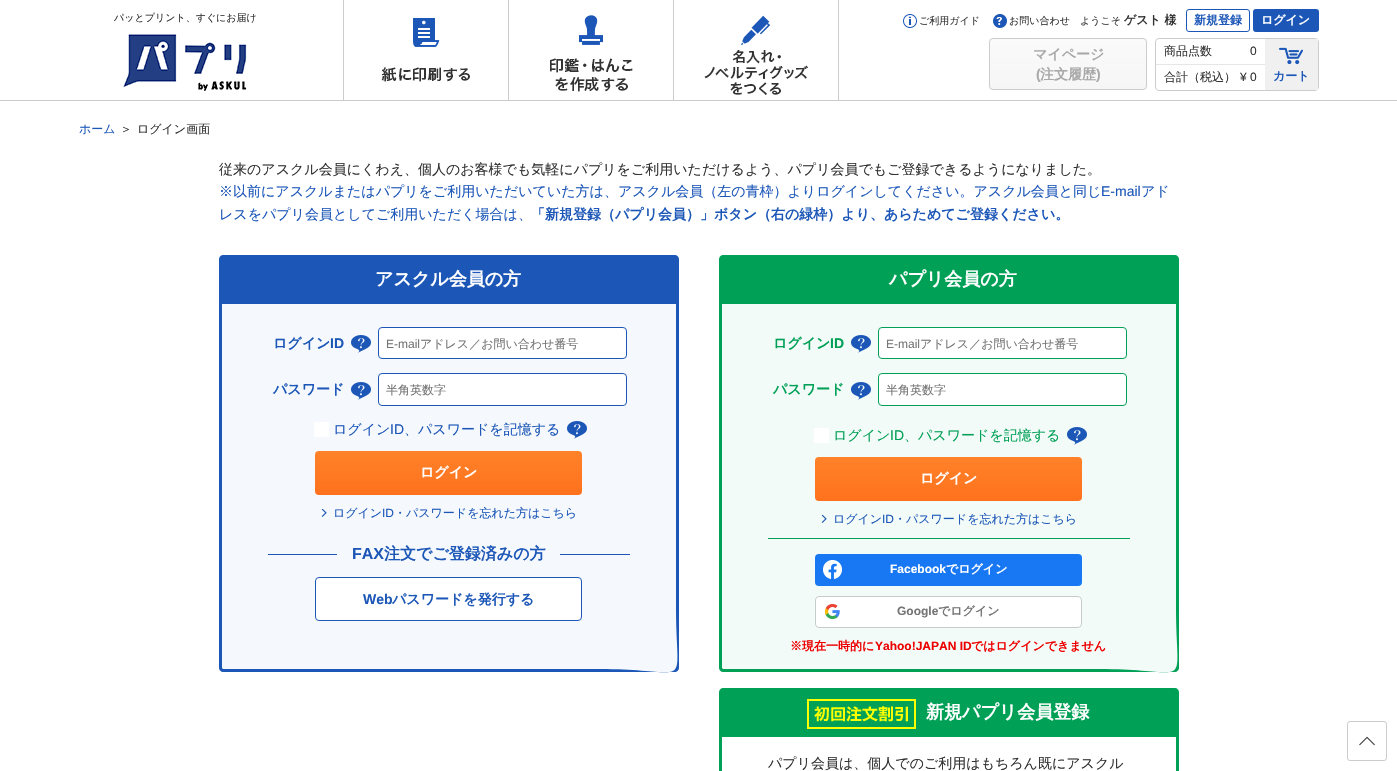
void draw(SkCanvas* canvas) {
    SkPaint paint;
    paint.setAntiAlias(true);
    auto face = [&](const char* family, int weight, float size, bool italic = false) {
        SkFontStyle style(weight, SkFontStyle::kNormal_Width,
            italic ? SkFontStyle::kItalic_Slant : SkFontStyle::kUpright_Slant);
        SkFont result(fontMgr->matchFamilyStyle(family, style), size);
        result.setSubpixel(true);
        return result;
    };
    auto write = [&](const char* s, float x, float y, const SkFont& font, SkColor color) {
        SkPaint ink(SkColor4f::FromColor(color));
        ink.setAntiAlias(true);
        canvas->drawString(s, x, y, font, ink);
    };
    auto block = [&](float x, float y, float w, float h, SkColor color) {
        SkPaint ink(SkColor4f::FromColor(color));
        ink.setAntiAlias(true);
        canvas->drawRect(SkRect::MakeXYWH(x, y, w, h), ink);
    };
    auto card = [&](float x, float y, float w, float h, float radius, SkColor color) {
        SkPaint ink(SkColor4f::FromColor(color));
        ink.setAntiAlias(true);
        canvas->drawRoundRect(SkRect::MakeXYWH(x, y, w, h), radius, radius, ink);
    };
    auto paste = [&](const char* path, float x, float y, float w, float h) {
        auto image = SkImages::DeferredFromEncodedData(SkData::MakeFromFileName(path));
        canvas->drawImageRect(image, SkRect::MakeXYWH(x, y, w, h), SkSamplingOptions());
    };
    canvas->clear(SK_ColorWHITE);
    block(0, 100, 1397, 1, SkColorSetRGB(204, 204, 204));
    auto kFont1 = face("WenQuanYi Zen Hei", 500, 10);
    write("パッとプリント、すぐにお届け", 114, 21, kFont1, SkColorSetRGB(51, 51, 51));
    paste("pic1.png", 123, 34, 124, 57);
    block(508, 0, 1, 100, SkColorSetRGB(204, 204, 204));
    block(343, 0, 1, 100, SkColorSetRGB(204, 204, 204));
    paste("pic2.png", 381, 18, 89, 64);
    block(673, 0, 1, 100, SkColorSetRGB(204, 204, 204));
    paste("pic3.png", 550, 15, 83, 77);
    block(838, 0, 1, 100, SkColorSetRGB(204, 204, 204));
    paste("pic4.png", 704, 15, 104, 80);
    paste("pic5.png", 903, 14, 14, 14);
    write("ご利用ガイド", 919, 24, kFont1, SkColorSetRGB(51, 51, 51));
    paste("pic6.png", 993, 14, 14, 14);
    write("お問い合わせ", 1009, 24, kFont1, SkColorSetRGB(51, 51, 51));
    write("ようこそ", 1080, 24, kFont1, SkColorSetRGB(51, 51, 51));
    auto kFont2 = face("WenQuanYi Zen Hei", 700, 12);
    write("ゲスト 様", 1124, 24, kFont2, SkColorSetRGB(51, 51, 51));
    paint.setStyle(SkPaint::kStroke_Style);
    paint.setStrokeWidth(1);
    paint.setColor(SkColorSetRGB(28, 87, 184));
    canvas->drawRoundRect(SkRect::MakeXYWH(1186.5f, 9.5f, 63, 22), 2.5f, 2.5f, paint);
    write("新規登録", 1194, 24, kFont2, SkColorSetRGB(28, 87, 184));
    card(1253, 9, 66, 23, 3, SkColorSetRGB(28, 87, 184));
    write("ログイン", 1261, 24, kFont2, SK_ColorWHITE);
    canvas->save();
    canvas->clipPath(SkPathBuilder().moveTo(993, 38).lineTo(1143, 38).cubicTo(1145, 38, 1147, 40, 1147, 42).lineTo(1147, 86).cubicTo(1147, 88, 1145, 90, 1143, 90).lineTo(993, 90).cubicTo(991, 90, 989, 88, 989, 86).lineTo(989, 42).cubicTo(989, 40, 991, 38, 993, 38).close().detach(), true);
    paint.setStyle(SkPaint::kFill_Style);
    {
        const SkColor colors[] = {SkColorSetRGB(250, 250, 250), SkColorSetRGB(246, 246, 246)};
        const float stops[] = {0, 1};
        const SkPoint ends[] = {{1068, 39}, {1068, 89}};
        paint.setShader(SkGradientShader::MakeLinear(ends, colors, stops, 2, SkTileMode::kClamp));
        paint.setAlpha(255);
    }
    canvas->drawRect(SkRect::MakeXYWH(989, 39, 158, 50), paint);
    canvas->restore();
    paint.setStyle(SkPaint::kStroke_Style);
    paint.setShader(nullptr);
    paint.setColor(SkColorSetRGB(204, 204, 204));
    canvas->drawRoundRect(SkRect::MakeXYWH(989.5f, 38.5f, 157, 51), 3.5f, 3.5f, paint);
    auto kFont3 = face("WenQuanYi Zen Hei", 700, 14);
    write("マイページ", 1033, 59, kFont3, SkColorSetRGB(168, 168, 168));
    auto kFont4 = face("Liberation Sans", 700, 14);
    write("(", 1036, 79, kFont4, SkColorSetRGB(168, 168, 168));
    write("注文履歴", 1040, 79, kFont3, SkColorSetRGB(168, 168, 168));
    write(")", 1096, 79, kFont4, SkColorSetRGB(168, 168, 168));
    canvas->drawRoundRect(SkRect::MakeXYWH(1155.5f, 38.5f, 163, 52), 3.5f, 3.5f, paint);
    auto kFont5 = face("WenQuanYi Zen Hei", 500, 12);
    write("商品点数", 1164, 55, kFont5, SkColorSetRGB(51, 51, 51));
    block(1156, 64, 109, 1, SkColorSetRGB(230, 230, 230));
    auto kFont6 = face("Liberation Sans", 400, 12);
    write("0", 1250, 55, kFont6, SkColorSetRGB(51, 51, 51));
    write("合計（税込）", 1164, 81, kFont5, SkColorSetRGB(51, 51, 51));
    write("¥ 0", 1240, 81, kFont6, SkColorSetRGB(51, 51, 51));
    block(1265, 39, 53, 51, SkColorSetRGB(240, 240, 240));
    paste("pic7.png", 1279, 47, 24, 18);
    write("カート", 1273, 80, kFont2, SkColorSetRGB(28, 87, 184));
    write("ホーム", 79, 133, kFont5, SkColorSetRGB(28, 87, 184));
    write("＞", 120, 133, kFont5, SkColorSetRGB(51, 51, 51));
    write("ログイン画面", 137, 133, kFont5, SkColorSetRGB(51, 51, 51));
    auto kFont7 = face("WenQuanYi Zen Hei", 500, 14);
    write("従来のアスクル会員にくわえ、個人のお客様でも気軽にパプリをご利用いただけるよう、パプリ会員でもご登録できるようになりました。", 219, 174, kFont7, SkColorSetRGB(51, 51, 51));
    write("※以前にアスクルまたはパプリをご利用いただいていた方は、アスクル会員（左の青枠）よりログインしてください。アスクル会員と同じ", 219, 196, kFont7, SkColorSetRGB(28, 87, 184));
    auto kFont8 = face("Liberation Sans", 400, 14);
    write("E-mail", 1101, 196, kFont8, SkColorSetRGB(28, 87, 184));
    write("アド", 1141, 196, kFont7, SkColorSetRGB(28, 87, 184));
    write("レスをパプリ会員としてご利用いただく場合は、", 219, 219, kFont7, SkColorSetRGB(28, 87, 184));
    write("「新規登録（パプリ会員）」ボタン（右の緑枠）より、あらためてご登録ください。", 531, 219, kFont3, SkColorSetRGB(28, 87, 184));
    paint.setStyle(SkPaint::kFill_Style);
    paint.setColor(SkColorSetRGB(28, 87, 184));
    canvas->drawPath(SkPathBuilder().moveTo(223, 255).lineTo(675, 255).cubicTo(677, 255, 679, 257, 679, 259).lineTo(679, 304).lineTo(219, 304).lineTo(219, 259).cubicTo(219, 257, 221, 255, 223, 255).close().detach(), paint);
    auto kFont9 = face("WenQuanYi Zen Hei", 700, 18);
    write("アスクル会員の方", 375, 285, kFont9, SK_ColorWHITE);
    paint.setColor(SkColorSetRGB(245, 248, 252));
    canvas->drawPath(SkPathBuilder().moveTo(219, 304).lineTo(679, 304).lineTo(679, 668).cubicTo(679, 670, 677, 672, 675, 672).lineTo(223, 672).cubicTo(221, 672, 219, 670, 219, 668).close().detach(), paint);
    paint.setColor(SkColorSetRGB(28, 87, 184));
    canvas->drawPath(SkPathBuilder(SkPathFillType::kEvenOdd).moveTo(219, 304).lineTo(679, 304).lineTo(679, 668).cubicTo(679, 670, 677, 672, 675, 672).lineTo(223, 672).cubicTo(221, 672, 219, 670, 219, 668).close().moveTo(222, 304).lineTo(676, 304).lineTo(676, 607).cubicTo(676, 694, 695, 669, 600, 669).lineTo(223, 669).lineTo(222, 668).close().detach(), paint);
    write("ログイン", 273, 348, kFont3, SkColorSetRGB(28, 87, 184));
    write("ID", 330, 348, kFont4, SkColorSetRGB(28, 87, 184));
    paste("pic8.png", 351, 335, 20, 18);
    paint.setColor(SK_ColorWHITE);
    canvas->drawRoundRect(SkRect::MakeXYWH(378.5f, 327.5f, 248, 31), 3.5f, 3.5f, paint);
    paint.setStyle(SkPaint::kStroke_Style);
    paint.setColor(SkColorSetRGB(28, 87, 184));
    canvas->drawRoundRect(SkRect::MakeXYWH(378.5f, 327.5f, 248, 31), 3.5f, 3.5f, paint);
    write("E-mail", 386, 348, kFont6, SkColorSetRGB(117, 117, 117));
    write("アドレス／お問い合わせ番号", 420, 348, kFont5, SkColorSetRGB(117, 117, 117));
    write("パスワード", 273, 394, kFont3, SkColorSetRGB(28, 87, 184));
    paste("pic8.png", 351, 382, 20, 18);
    paint.setStyle(SkPaint::kFill_Style);
    paint.setColor(SK_ColorWHITE);
    canvas->drawRoundRect(SkRect::MakeXYWH(378.5f, 373.5f, 248, 32), 3.5f, 3.5f, paint);
    paint.setStyle(SkPaint::kStroke_Style);
    paint.setColor(SkColorSetRGB(28, 87, 184));
    canvas->drawRoundRect(SkRect::MakeXYWH(378.5f, 373.5f, 248, 32), 3.5f, 3.5f, paint);
    write("半角英数字", 386, 394, kFont5, SkColorSetRGB(117, 117, 117));
    block(314, 422, 15, 15, SK_ColorWHITE);
    write("ログイン", 333, 434, kFont7, SkColorSetRGB(28, 87, 184));
    write("ID", 390, 434, kFont8, SkColorSetRGB(28, 87, 184));
    write("、パスワードを記憶する", 404, 434, kFont7, SkColorSetRGB(28, 87, 184));
    paste("pic8.png", 567, 421, 20, 18);
    paint.setStyle(SkPaint::kFill_Style);
    {
        const SkColor colors[] = {SkColorSetRGB(255, 130, 41), SkColorSetRGB(255, 113, 29)};
        const float stops[] = {0, 1};
        const SkPoint ends[] = {{449, 451}, {449, 495}};
        paint.setShader(SkGradientShader::MakeLinear(ends, colors, stops, 2, SkTileMode::kClamp));
        paint.setAlpha(255);
    }
    canvas->drawRoundRect(SkRect::MakeXYWH(315, 451, 267, 44), 4, 4, paint);
    write("ログイン", 420, 477, kFont3, SK_ColorWHITE);
    paste("pic9.png", 321, 509, 6, 8);
    write("ログイン", 333, 517, kFont5, SkColorSetRGB(28, 87, 184));
    write("ID", 382, 517, kFont6, SkColorSetRGB(28, 87, 184));
    write("・パスワードを忘れた方はこちら", 394, 517, kFont5, SkColorSetRGB(28, 87, 184));
    block(268, 554, 69, 1, SkColorSetRGB(28, 87, 184));
    auto kFont10 = face("Liberation Sans", 700, 16);
    write("FAX", 352, 559, kFont10, SkColorSetRGB(28, 87, 184));
    auto kFont11 = face("WenQuanYi Zen Hei", 700, 16);
    write("注文でご登録済みの方", 384, 559, kFont11, SkColorSetRGB(28, 87, 184));
    block(560, 554, 70, 1, SkColorSetRGB(28, 87, 184));
    paint.setShader(nullptr);
    paint.setColor(SK_ColorWHITE);
    canvas->drawRoundRect(SkRect::MakeXYWH(315.5f, 577.5f, 266, 43), 3.5f, 3.5f, paint);
    paint.setStyle(SkPaint::kStroke_Style);
    paint.setColor(SkColorSetRGB(28, 87, 184));
    canvas->drawRoundRect(SkRect::MakeXYWH(315.5f, 577.5f, 266, 43), 3.5f, 3.5f, paint);
    write("Web", 363, 604, kFont4, SkColorSetRGB(28, 87, 184));
    write("パスワードを発行する", 392, 604, kFont3, SkColorSetRGB(28, 87, 184));
    paint.setStyle(SkPaint::kFill_Style);
    paint.setColor(SkColorSetRGB(0, 160, 87));
    canvas->drawPath(SkPathBuilder().moveTo(723, 255).lineTo(1175, 255).cubicTo(1177, 255, 1179, 257, 1179, 259).lineTo(1179, 304).lineTo(719, 304).lineTo(719, 259).cubicTo(719, 257, 721, 255, 723, 255).close().detach(), paint);
    write("パプリ会員の方", 889, 285, kFont9, SK_ColorWHITE);
    paint.setColor(SkColorSetRGB(242, 251, 247));
    canvas->drawPath(SkPathBuilder().moveTo(719, 304).lineTo(1179, 304).lineTo(1179, 668).cubicTo(1179, 670, 1177, 672, 1175, 672).lineTo(723, 672).cubicTo(721, 672, 719, 670, 719, 668).close().detach(), paint);
    paint.setColor(SkColorSetRGB(0, 160, 87));
    canvas->drawPath(SkPathBuilder(SkPathFillType::kEvenOdd).moveTo(719, 304).lineTo(1179, 304).lineTo(1179, 668).cubicTo(1179, 670, 1177, 672, 1175, 672).lineTo(723, 672).cubicTo(721, 672, 719, 670, 719, 668).close().moveTo(722, 304).lineTo(1176, 304).lineTo(1176, 607).cubicTo(1176, 694, 1195, 669, 1100, 669).lineTo(723, 669).lineTo(722, 668).close().detach(), paint);
    write("ログイン", 773, 348, kFont3, SkColorSetRGB(0, 160, 87));
    write("ID", 830, 348, kFont4, SkColorSetRGB(0, 160, 87));
    paste("pic10.png", 851, 335, 20, 18);
    paint.setColor(SK_ColorWHITE);
    canvas->drawRoundRect(SkRect::MakeXYWH(878.5f, 327.5f, 248, 31), 3.5f, 3.5f, paint);
    paint.setStyle(SkPaint::kStroke_Style);
    paint.setColor(SkColorSetRGB(0, 160, 87));
    canvas->drawRoundRect(SkRect::MakeXYWH(878.5f, 327.5f, 248, 31), 3.5f, 3.5f, paint);
    write("E-mail", 886, 348, kFont6, SkColorSetRGB(117, 117, 117));
    write("アドレス／お問い合わせ番号", 920, 348, kFont5, SkColorSetRGB(117, 117, 117));
    write("パスワード", 773, 394, kFont3, SkColorSetRGB(0, 160, 87));
    paste("pic10.png", 851, 382, 20, 18);
    paint.setStyle(SkPaint::kFill_Style);
    paint.setColor(SK_ColorWHITE);
    canvas->drawRoundRect(SkRect::MakeXYWH(878.5f, 373.5f, 248, 32), 3.5f, 3.5f, paint);
    paint.setStyle(SkPaint::kStroke_Style);
    paint.setColor(SkColorSetRGB(0, 160, 87));
    canvas->drawRoundRect(SkRect::MakeXYWH(878.5f, 373.5f, 248, 32), 3.5f, 3.5f, paint);
    write("半角英数字", 886, 394, kFont5, SkColorSetRGB(117, 117, 117));
    block(814, 428, 15, 15, SK_ColorWHITE);
    write("ログイン", 833, 440, kFont7, SkColorSetRGB(0, 160, 87));
    write("ID", 890, 440, kFont8, SkColorSetRGB(0, 160, 87));
    write("、パスワードを記憶する", 904, 440, kFont7, SkColorSetRGB(0, 160, 87));
    paste("pic10.png", 1067, 427, 20, 18);
    paint.setStyle(SkPaint::kFill_Style);
    {
        const SkColor colors[] = {SkColorSetRGB(255, 130, 41), SkColorSetRGB(255, 113, 29)};
        const float stops[] = {0, 1};
        const SkPoint ends[] = {{949, 457}, {949, 501}};
        paint.setShader(SkGradientShader::MakeLinear(ends, colors, stops, 2, SkTileMode::kClamp));
        paint.setAlpha(255);
    }
    canvas->drawRoundRect(SkRect::MakeXYWH(815, 457, 267, 44), 4, 4, paint);
    write("ログイン", 920, 483, kFont3, SK_ColorWHITE);
    paste("pic11.png", 821, 515, 6, 8);
    write("ログイン", 833, 523, kFont5, SkColorSetRGB(28, 87, 184));
    write("ID", 882, 523, kFont6, SkColorSetRGB(28, 87, 184));
    write("・パスワードを忘れた方はこちら", 894, 523, kFont5, SkColorSetRGB(28, 87, 184));
    block(768, 538, 362, 1, SkColorSetRGB(0, 160, 87));
    card(815, 554, 267, 32, 4, SkColorSetRGB(24, 119, 242));
    paste("pic12.png", 823, 560, 19, 19);
    auto kFont12 = face("Liberation Sans", 700, 12);
    write("Facebook", 890, 573, kFont12, SK_ColorWHITE);
    write("でログイン", 946, 573, kFont2, SK_ColorWHITE);
    card(815, 596, 267, 32, 4, SK_ColorWHITE);
    paste("pic13.png", 825, 604, 15, 15);
    paint.setStyle(SkPaint::kStroke_Style);
    paint.setShader(nullptr);
    paint.setColor(SkColorSetRGB(199, 203, 201));
    canvas->drawRoundRect(SkRect::MakeXYWH(815.5f, 596.5f, 266, 31), 3.5f, 3.5f, paint);
    write("Google", 897, 615, kFont12, SkColorSetRGB(117, 117, 117));
    write("でログイン", 938, 615, kFont2, SkColorSetRGB(117, 117, 117));
    write("※現在一時的に", 790, 650, kFont2, SkColorSetRGB(237, 0, 0));
    write("Yahoo!JAPAN ID", 875, 650, kFont12, SkColorSetRGB(237, 0, 0));
    write("ではログインできません", 971, 650, kFont2, SkColorSetRGB(237, 0, 0));
    paint.setStyle(SkPaint::kFill_Style);
    paint.setColor(SkColorSetRGB(0, 160, 87));
    canvas->drawPath(SkPathBuilder().moveTo(723, 688).lineTo(1175, 688).cubicTo(1177, 688, 1179, 690, 1179, 692).lineTo(1179, 737).lineTo(719, 737).lineTo(719, 692).cubicTo(719, 690, 721, 688, 723, 688).close().detach(), paint);
    paste("pic14.png", 807, 699, 109, 30);
    write("新規パプリ会員登録", 926, 718, kFont9, SK_ColorWHITE);
    canvas->drawPath(SkPathBuilder(SkPathFillType::kEvenOdd).moveTo(719, 737).lineTo(1179, 737).lineTo(1179, 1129).cubicTo(1179, 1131, 1177, 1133, 1175, 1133).lineTo(723, 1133).cubicTo(721, 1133, 719, 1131, 719, 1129).close().moveTo(722, 737).lineTo(1176, 737).lineTo(1176, 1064).cubicTo(1176, 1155, 1197, 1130, 1100, 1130).lineTo(723, 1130).lineTo(722, 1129).close().detach(), paint);
    write("パプリ会員は、個人でのご利用はもちろん既にアスクル", 768, 768, kFont7, SkColorSetRGB(51, 51, 51));
    paint.setStyle(SkPaint::kStroke_Style);
    paint.setColor(SkColorSetRGB(204, 204, 204));
    canvas->drawRoundRect(SkRect::MakeXYWH(1347.5f, 721.5f, 39, 39), 2.5f, 2.5f, paint);
    paste("pic15.png", 1359, 736, 16, 10);
}
